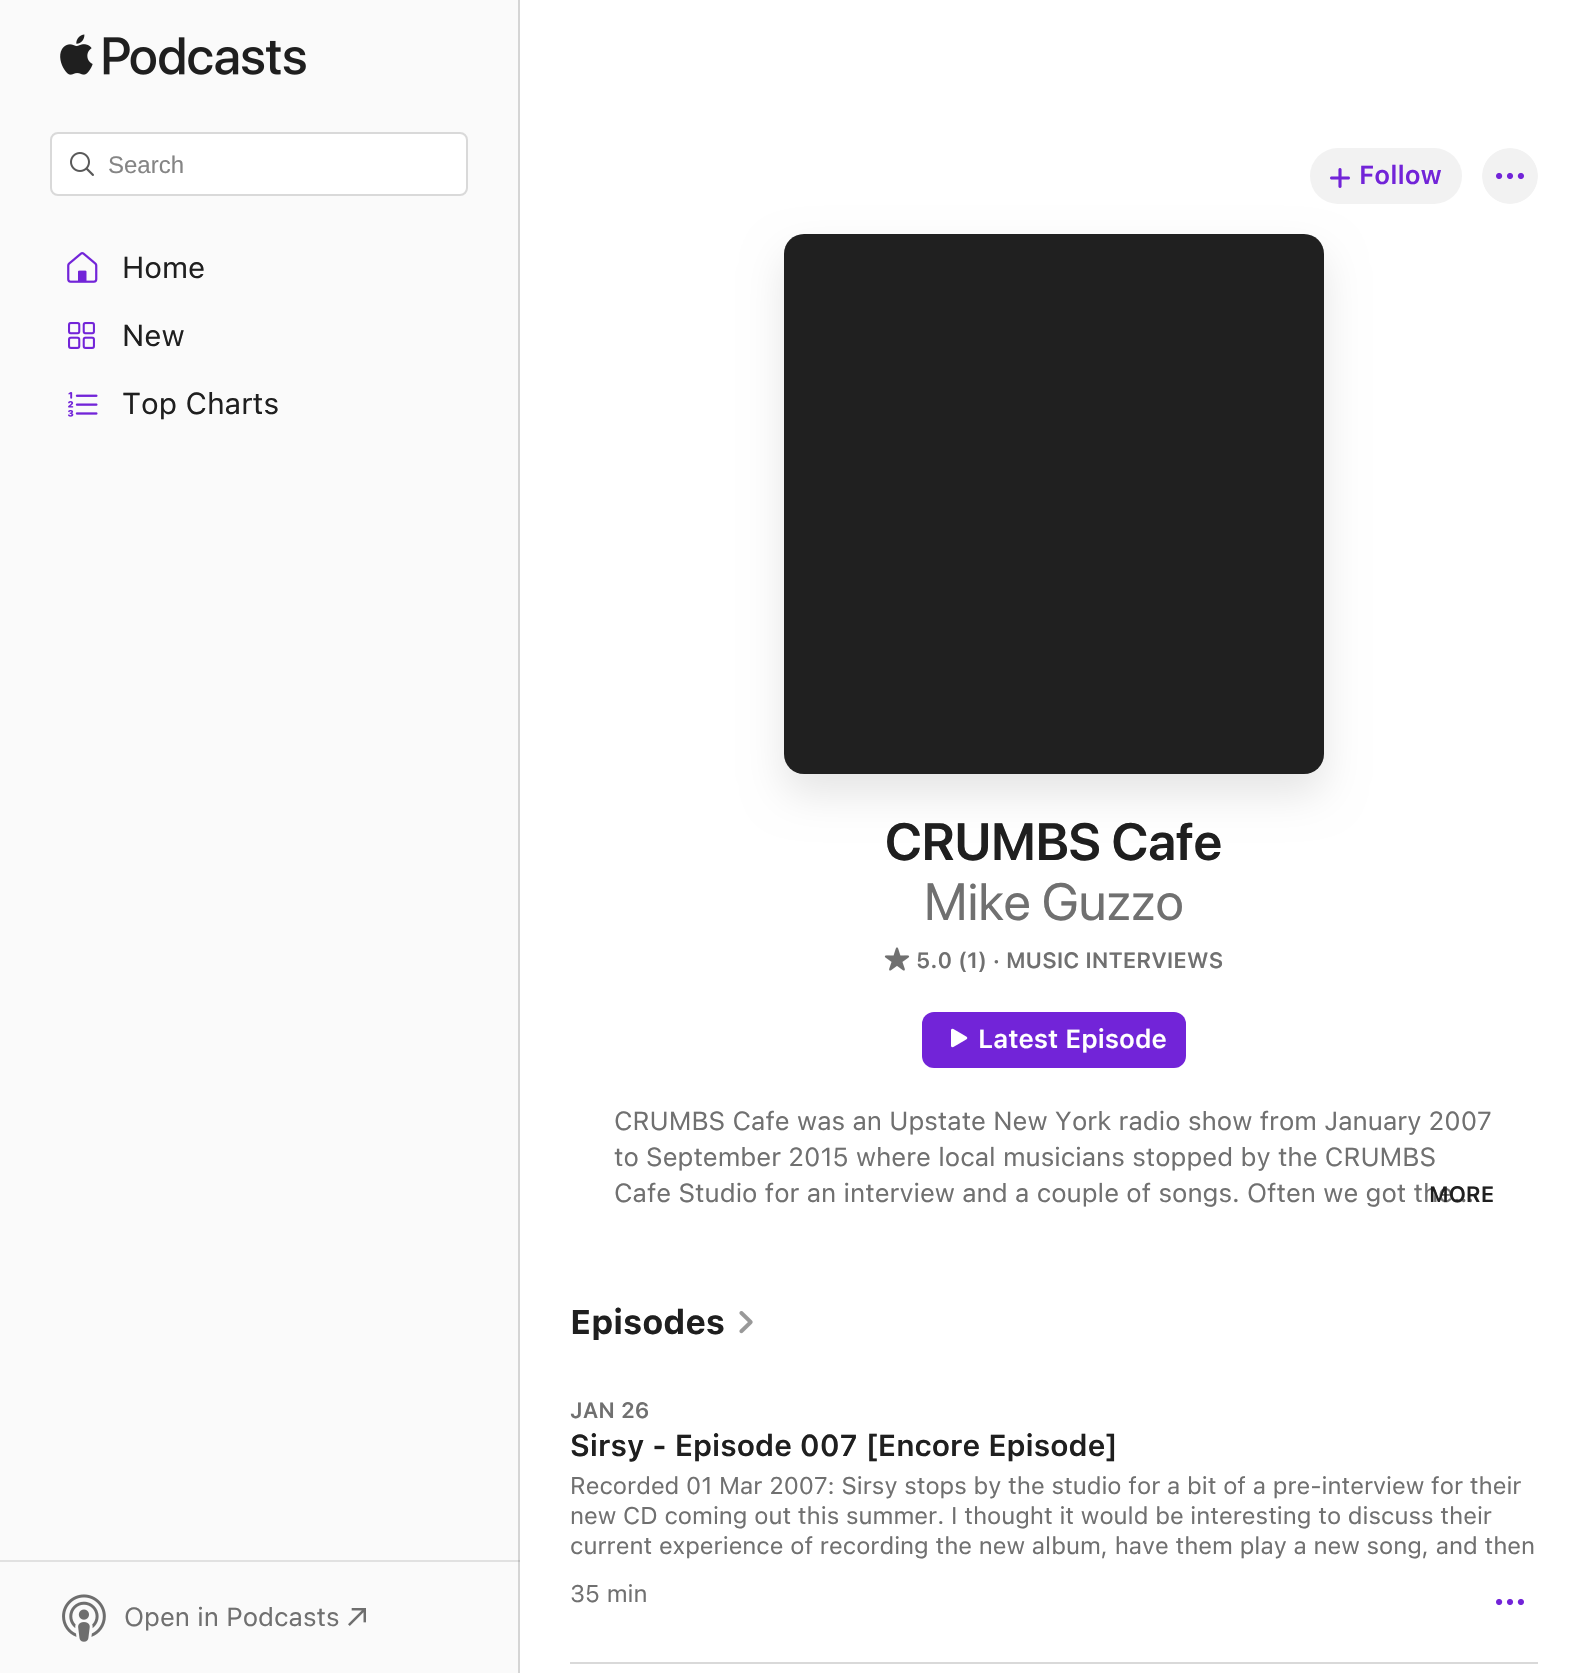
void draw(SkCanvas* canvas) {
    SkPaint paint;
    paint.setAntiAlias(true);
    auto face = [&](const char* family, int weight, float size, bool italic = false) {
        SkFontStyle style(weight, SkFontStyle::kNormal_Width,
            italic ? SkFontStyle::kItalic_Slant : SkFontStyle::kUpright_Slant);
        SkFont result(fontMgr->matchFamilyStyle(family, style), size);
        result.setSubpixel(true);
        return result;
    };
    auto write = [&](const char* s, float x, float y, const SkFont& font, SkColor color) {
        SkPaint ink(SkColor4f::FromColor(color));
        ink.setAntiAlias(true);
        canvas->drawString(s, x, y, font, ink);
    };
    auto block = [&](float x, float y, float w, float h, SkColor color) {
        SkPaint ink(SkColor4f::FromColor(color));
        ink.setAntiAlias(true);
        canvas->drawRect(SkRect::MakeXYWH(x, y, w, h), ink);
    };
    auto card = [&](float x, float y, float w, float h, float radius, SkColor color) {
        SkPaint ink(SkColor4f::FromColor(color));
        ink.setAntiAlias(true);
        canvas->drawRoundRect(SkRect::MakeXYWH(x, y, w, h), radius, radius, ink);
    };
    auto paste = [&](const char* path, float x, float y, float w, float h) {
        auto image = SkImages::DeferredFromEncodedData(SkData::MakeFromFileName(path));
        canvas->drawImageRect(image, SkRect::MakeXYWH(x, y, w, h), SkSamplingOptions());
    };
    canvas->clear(SK_ColorWHITE);
    block(0, 0, 518, 1673, SkColorSetRGB(250, 250, 250));
    block(0, 1560, 520, 2, SkColorSetRGB(225, 225, 225));
    block(518, 0, 2, 1673, SkColorSetRGB(213, 213, 213));
    block(518, 1560, 2, 2, SkColorSetRGB(192, 192, 192));
    paste("pic1.png", 60, 34, 246, 41);
    paint.setColor(SK_ColorWHITE);
    canvas->drawRoundRect(SkRect::MakeXYWH(51, 133, 416, 62), 7, 7, paint);
    paint.setStyle(SkPaint::kStroke_Style);
    paint.setStrokeWidth(2);
    paint.setColor(SkColorSetRGB(217, 217, 217));
    canvas->drawRoundRect(SkRect::MakeXYWH(51, 133, 416, 62), 7, 7, paint);
    paste("pic2.png", 70, 152, 24, 24);
    auto kFont1 = face("Liberation Sans", 400, 24);
    write("Search", 108, 173, kFont1, SkColorSetRGB(133, 133, 133));
    paste("pic3.png", 67, 252, 31, 31);
    auto kFont2 = face("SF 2", 400, 30);
    write("Home", 122, 278, kFont2, SkColorSetRGB(31, 31, 31));
    paste("pic4.png", 68, 322, 27, 27);
    write("New", 122, 346, kFont2, SkColorSetRGB(31, 31, 31));
    paste("pic5.png", 68, 392, 30, 25);
    write("Top Charts", 122, 414, kFont2, SkColorSetRGB(31, 31, 31));
    paste("pic6.png", 62, 1594, 44, 48);
    auto kFont3 = face("SF 2", 400, 26);
    write("Open in Podcasts", 124, 1626, kFont3, SkColorSetRGB(112, 112, 112));
    paste("pic7.png", 348, 1608, 18, 18);
    card(1310, 148, 152, 56, 28, SkColorSetRGB(242, 242, 242));
    paste("pic8.png", 1330, 168, 20, 20);
    auto kFont4 = face("SF", 600, 26);
    write("Follow", 1359, 184, kFont4, SkColorSetRGB(114, 36, 216));
    paste("pic9.png", 1482, 148, 56, 56);
    paint.setStyle(SkPaint::kFill_Style);
    paint.setColor(SkColorSetARGB(26, 0, 0, 0));
    paint.setMaskFilter(SkMaskFilter::MakeBlur(kNormal_SkBlurStyle, 20));
    canvas->drawRoundRect(SkRect::MakeXYWH(784, 254, 540, 540), 20, 20, paint);
    paint.setMaskFilter(nullptr);
    card(784, 234, 540, 540, 20, SkColorSetRGB(21, 21, 21));
    paint.setColor(SkColorSetARGB(26, 128, 128, 128));
    canvas->drawPath(SkPathBuilder().moveTo(804, 234).lineTo(1304, 234).cubicTo(1315, 234, 1324, 243, 1324, 254).lineTo(1324, 754).cubicTo(1324, 765, 1315, 774, 1304, 774).lineTo(804, 774).cubicTo(793, 774, 784, 765, 784, 754).lineTo(784, 254).cubicTo(784, 243, 793, 234, 804, 234).close().detach(), paint);
    auto kFont5 = face("SF 2", 600, 52);
    write("CRUMBS Cafe", 885, 860, kFont5, SkColorSetRGB(31, 31, 31));
    auto kFont6 = face("SF", 400, 52);
    write("Mike Guzzo", 924, 920, kFont6, SkColorSetRGB(112, 112, 112));
    paste("pic10.png", 884, 947, 26, 24);
    auto kFont7 = face("SF", 600, 22);
    write("5.0 (1) · MUSIC INTERVIEWS", 916, 968, kFont7, SkColorSetRGB(112, 112, 112));
    card(922, 1012, 264, 56, 12, SkColorSetRGB(114, 36, 216));
    paste("pic11.png", 951, 1028, 17, 20);
    write("Latest Episode", 978, 1048, kFont4, SK_ColorWHITE);
    write("CRUMBS Cafe was an Upstate New York radio show from January 2007", 614, 1130, kFont3, SkColorSetRGB(112, 112, 112));
    write("to September 2015 where local musicians stopped by the CRUMBS", 614, 1166, kFont3, SkColorSetRGB(112, 112, 112));
    write("Cafe Studio for an interview and a couple of songs. Often we got the…", 614, 1202, kFont3, SkColorSetRGB(112, 112, 112));
    write("MORE", 1429, 1202, kFont7, SkColorSetRGB(31, 31, 31));
    auto kFont8 = face("SF", 700, 34);
    write("Episodes", 570, 1334, kFont8, SkColorSetRGB(31, 31, 31));
    paste("pic12.png", 739, 1311, 14, 23);
    block(570, 1662, 968, 2, SkColorSetRGB(217, 217, 217));
    write("JAN 26", 570, 1418, kFont7, SkColorSetRGB(112, 112, 112));
    auto kFont9 = face("SF", 600, 30);
    write("Sirsy - Episode 007 [Encore Episode]", 570, 1456, kFont9, SkColorSetRGB(31, 31, 31));
    auto kFont10 = face("SF 2", 400, 24);
    write("Recorded 01 Mar 2007: Sirsy stops by the studio for a bit of a pre-interview for their", 570, 1494, kFont10, SkColorSetRGB(112, 112, 112));
    write("new CD coming out this summer. I thought it would be interesting to discuss their", 570, 1524, kFont10, SkColorSetRGB(112, 112, 112));
    write("current experience of recording the new album, have them play a new song, and then", 570, 1554, kFont10, SkColorSetRGB(112, 112, 112));
    write("35 min", 570, 1602, kFont10, SkColorSetRGB(112, 112, 112));
    paste("pic13.png", 1496, 1598, 28, 8);
}
